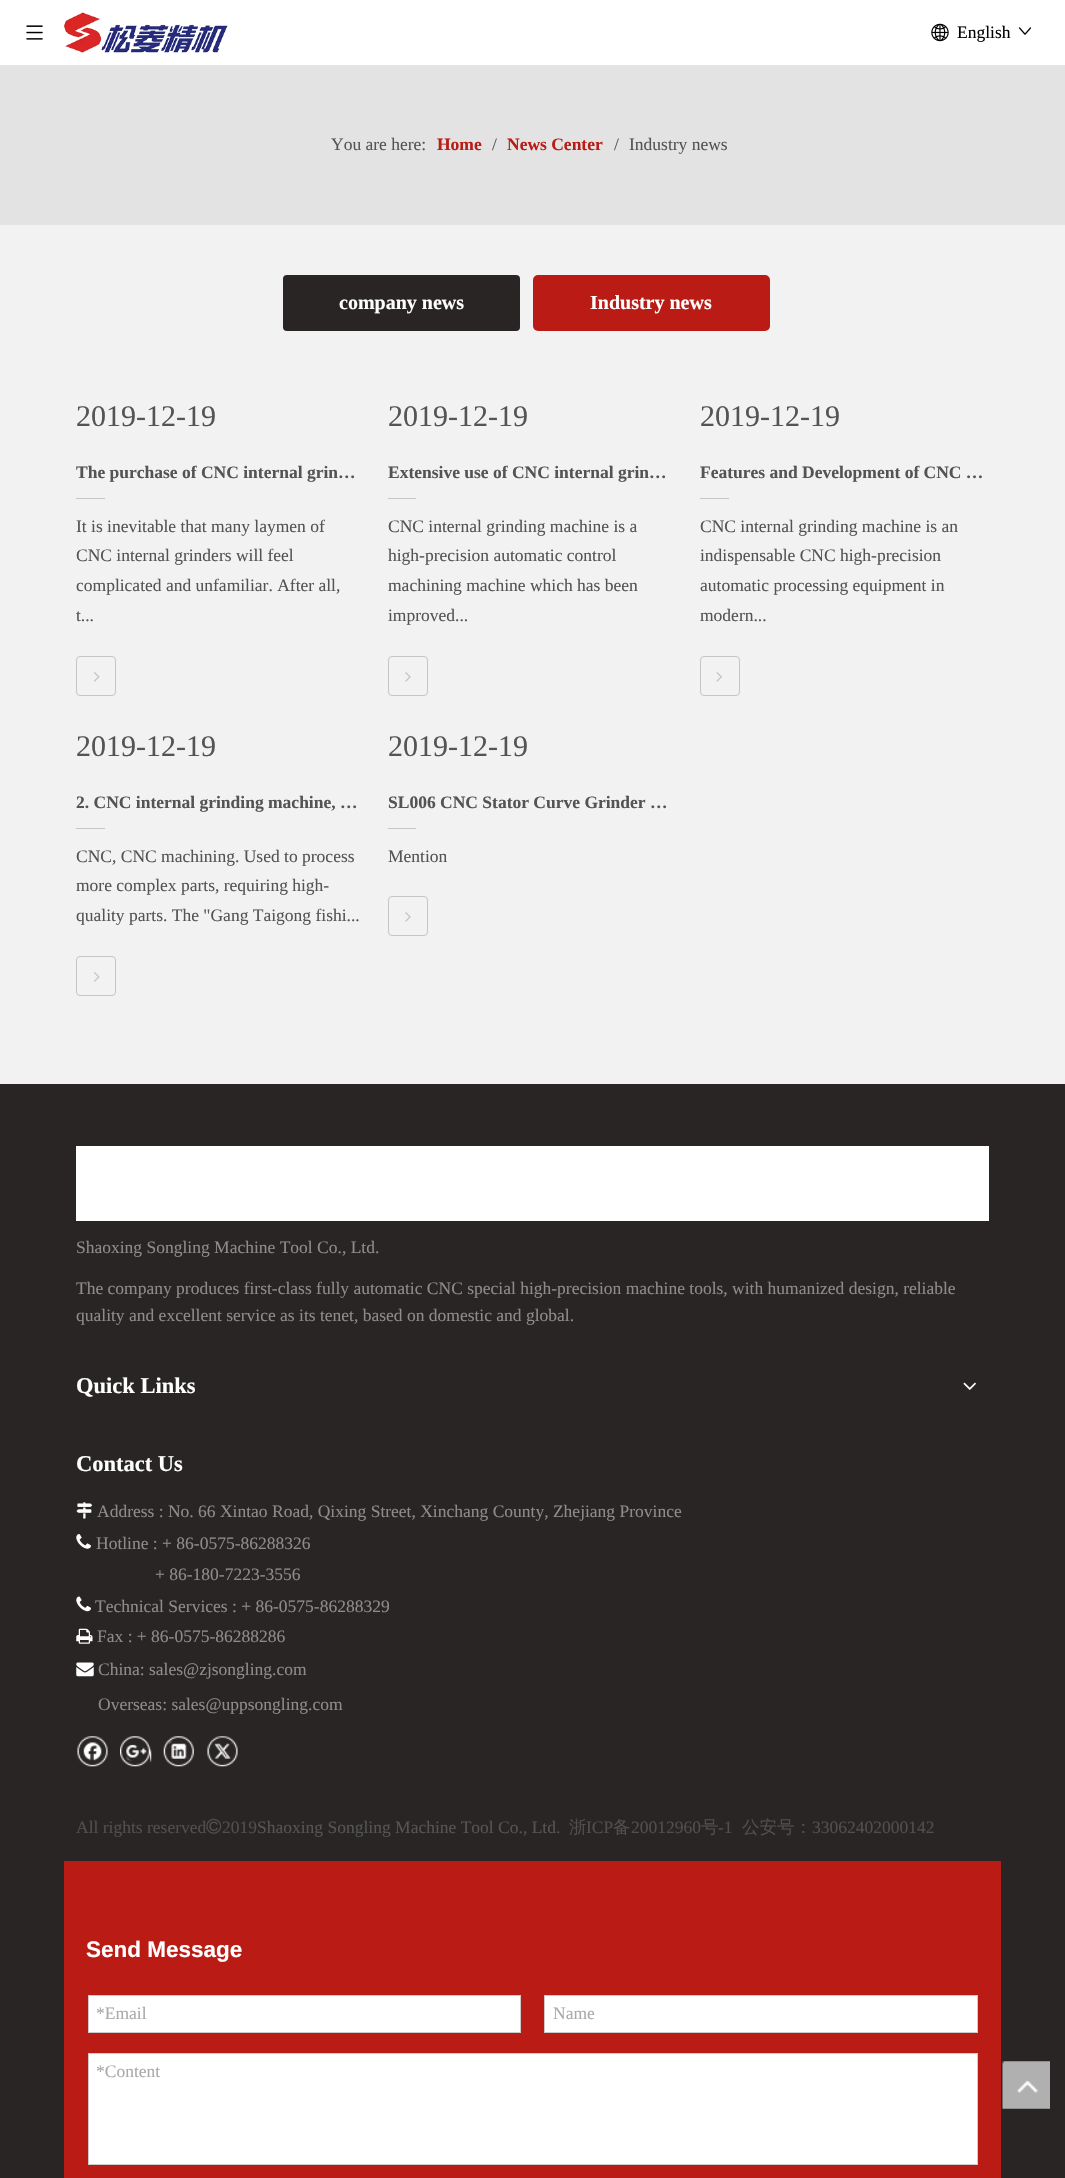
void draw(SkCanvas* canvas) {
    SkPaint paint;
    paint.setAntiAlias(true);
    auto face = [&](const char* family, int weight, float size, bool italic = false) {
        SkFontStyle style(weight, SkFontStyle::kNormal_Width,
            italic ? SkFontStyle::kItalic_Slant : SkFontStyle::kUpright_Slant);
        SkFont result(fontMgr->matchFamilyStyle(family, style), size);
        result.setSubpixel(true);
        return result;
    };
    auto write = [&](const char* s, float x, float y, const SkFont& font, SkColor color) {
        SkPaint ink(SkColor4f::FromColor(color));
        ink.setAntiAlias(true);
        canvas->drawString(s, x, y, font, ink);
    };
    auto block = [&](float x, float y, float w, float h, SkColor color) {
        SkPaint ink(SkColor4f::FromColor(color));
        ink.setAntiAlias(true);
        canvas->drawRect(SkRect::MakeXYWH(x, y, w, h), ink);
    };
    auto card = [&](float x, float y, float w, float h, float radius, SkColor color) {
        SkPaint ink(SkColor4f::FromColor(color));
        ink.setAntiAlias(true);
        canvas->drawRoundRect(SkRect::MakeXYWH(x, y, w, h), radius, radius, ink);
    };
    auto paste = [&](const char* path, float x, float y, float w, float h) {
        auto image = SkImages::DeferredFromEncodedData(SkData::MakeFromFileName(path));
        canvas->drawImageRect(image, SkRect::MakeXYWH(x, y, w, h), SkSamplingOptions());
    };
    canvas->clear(SkColorSetRGB(242, 242, 242));
    block(0, 0, 1065, 65, SK_ColorWHITE);
    paste("pic1.png", 26, 25, 17, 15);
    paste("pic2.png", 64, 12, 164, 41);
    paste("pic3.png", 931, 23, 18, 19);
    auto kFont1 = face("Liberation Serif", 400, 17.5f);
    write("English", 957, 38, kFont1, SK_ColorBLACK);
    paste("pic4.png", 1018, 27, 14, 8);
    block(0, 65, 1065, 160, SkColorSetRGB(227, 227, 227));
    write("You are here:", 331, 150, kFont1, SkColorSetRGB(84, 84, 84));
    auto kFont2 = face("Liberation Serif", 700, 17.5f);
    write("Home", 437, 150, kFont2, SkColorSetRGB(186, 28, 21));
    write("/", 492, 150, kFont1, SkColorSetRGB(84, 84, 84));
    write("News Center", 507, 150, kFont2, SkColorSetRGB(186, 28, 21));
    write("/", 614, 150, kFont1, SkColorSetRGB(84, 84, 84));
    write("Industry news", 629, 150, kFont1, SkColorSetRGB(84, 84, 84));
    card(283, 275, 237, 56, 4, SkColorSetRGB(41, 37, 37));
    auto kFont3 = face("Liberation Serif", 700, 20);
    write("company news", 339, 309, kFont3, SK_ColorWHITE);
    card(533, 275, 237, 56, 5, SkColorSetRGB(186, 28, 21));
    write("Industry news", 590, 309, kFont3, SK_ColorWHITE);
    auto kFont4 = face("Liberation Serif", 400, 30);
    write("2019-12-19", 76, 426, kFont4, SkColorSetRGB(84, 84, 84));
    write("The purchase of CNC internal grin…", 76, 478, kFont2, SkColorSetRGB(84, 84, 84));
    block(76, 498, 29, 1, SkColorSetRGB(197, 197, 197));
    write("It is inevitable that many laymen of", 76, 532, kFont1, SkColorSetRGB(84, 84, 84));
    write("CNC internal grinders will feel", 76, 561, kFont1, SkColorSetRGB(84, 84, 84));
    write("complicated and unfamiliar. After all,", 76, 591, kFont1, SkColorSetRGB(84, 84, 84));
    write("t...", 76, 621, kFont1, SkColorSetRGB(84, 84, 84));
    paint.setStyle(SkPaint::kStroke_Style);
    paint.setStrokeWidth(1);
    paint.setColor(SkColorSetRGB(197, 197, 197));
    canvas->drawRoundRect(SkRect::MakeXYWH(76.5f, 656.5f, 39, 39), 3.5f, 3.5f, paint);
    paste("pic5.png", 94, 672, 6, 10);
    write("2019-12-19", 388, 426, kFont4, SkColorSetRGB(84, 84, 84));
    write("Extensive use of CNC internal grin…", 388, 478, kFont2, SkColorSetRGB(84, 84, 84));
    block(388, 498, 28, 1, SkColorSetRGB(197, 197, 197));
    write("CNC internal grinding machine is a", 388, 532, kFont1, SkColorSetRGB(84, 84, 84));
    write("high-precision automatic control", 388, 561, kFont1, SkColorSetRGB(84, 84, 84));
    write("machining machine which has been", 388, 591, kFont1, SkColorSetRGB(84, 84, 84));
    write("improved...", 388, 621, kFont1, SkColorSetRGB(84, 84, 84));
    canvas->drawRoundRect(SkRect::MakeXYWH(388.5f, 656.5f, 39, 39), 3.5f, 3.5f, paint);
    paste("pic6.png", 405, 672, 6, 10);
    write("2019-12-19", 700, 426, kFont4, SkColorSetRGB(84, 84, 84));
    write("Features and Development of CNC …", 700, 478, kFont2, SkColorSetRGB(84, 84, 84));
    block(700, 498, 29, 1, SkColorSetRGB(197, 197, 197));
    write("CNC internal grinding machine is an", 700, 532, kFont1, SkColorSetRGB(84, 84, 84));
    write("indispensable CNC high-precision", 700, 561, kFont1, SkColorSetRGB(84, 84, 84));
    write("automatic processing equipment in", 700, 591, kFont1, SkColorSetRGB(84, 84, 84));
    write("modern...", 700, 621, kFont1, SkColorSetRGB(84, 84, 84));
    canvas->drawRoundRect(SkRect::MakeXYWH(700.5f, 656.5f, 39, 39), 3.5f, 3.5f, paint);
    paste("pic7.png", 716, 672, 6, 10);
    write("2019-12-19", 76, 756, kFont4, SkColorSetRGB(84, 84, 84));
    write("2. CNC internal grinding machine, …", 76, 808, kFont2, SkColorSetRGB(84, 84, 84));
    block(76, 828, 29, 1, SkColorSetRGB(197, 197, 197));
    write("CNC, CNC machining. Used to process", 76, 862, kFont1, SkColorSetRGB(84, 84, 84));
    write("more complex parts, requiring high-", 76, 891, kFont1, SkColorSetRGB(84, 84, 84));
    write("quality parts. The \"Gang Taigong fishi...", 76, 921, kFont1, SkColorSetRGB(84, 84, 84));
    canvas->drawRoundRect(SkRect::MakeXYWH(76.5f, 956.5f, 39, 39), 3.5f, 3.5f, paint);
    paste("pic5.png", 94, 972, 6, 10);
    write("2019-12-19", 388, 756, kFont4, SkColorSetRGB(84, 84, 84));
    write("SL006 CNC Stator Curve Grinder …", 388, 808, kFont2, SkColorSetRGB(84, 84, 84));
    block(388, 828, 28, 1, SkColorSetRGB(197, 197, 197));
    write("Mention", 388, 862, kFont1, SkColorSetRGB(84, 84, 84));
    canvas->drawRoundRect(SkRect::MakeXYWH(388.5f, 896.5f, 39, 39), 3.5f, 3.5f, paint);
    paste("pic6.png", 405, 912, 6, 10);
    block(0, 1084, 1065, 1094, SkColorSetRGB(41, 37, 37));
    block(76, 1146, 913, 75, SK_ColorWHITE);
    write("Shaoxing Songling Machine Tool Co., Ltd.", 76, 1253, kFont1, SkColorSetRGB(142, 139, 139));
    write("The company produces first-class fully automatic CNC special high-precision machine tools, with humanized design, reliable", 76, 1294, kFont1, SkColorSetRGB(142, 139, 139));
    write("quality and excellent service as its tenet, based on domestic and global.", 76, 1321, kFont1, SkColorSetRGB(142, 139, 139));
    auto kFont5 = face("Liberation Serif", 700, 22.5f);
    write("Quick Links", 76, 1393, kFont5, SK_ColorWHITE);
    paste("pic8.png", 963, 1382, 13, 8);
    write("Contact Us", 76, 1471, kFont5, SK_ColorWHITE);
    paste("pic9.png", 76, 1502, 17, 17);
    write("Address : No. 66 Xintao Road, Qixing Street, Xinchang County, Zhejiang Province", 97, 1517, kFont1, SkColorSetRGB(142, 139, 139));
    paste("pic10.png", 76, 1534, 15, 15);
    write("Hotline : + 86-0575-86288326", 96, 1549, kFont1, SkColorSetRGB(142, 139, 139));
    write("+ 86-180-7223-3556", 155, 1580, kFont1, SkColorSetRGB(142, 139, 139));
    paste("pic11.png", 76, 1596, 15, 16);
    write("Technical Services : + 86-0575-86288329", 95, 1612, kFont1, SkColorSetRGB(142, 139, 139));
    paste("pic12.png", 76, 1628, 17, 16);
    write("Fax : + 86-0575-86288286", 97, 1642, kFont1, SkColorSetRGB(142, 139, 139));
    paste("pic13.png", 76, 1662, 18, 15);
    write("China: sales@zjsongling.com", 98, 1675, kFont1, SkColorSetRGB(142, 139, 139));
    write("Overseas: sales@uppsongling.com", 98, 1710, kFont1, SkColorSetRGB(142, 139, 139));
    paste("pic14.png", 77, 1736, 31, 31);
    paste("pic15.png", 120, 1736, 32, 31);
    paste("pic16.png", 163, 1736, 31, 31);
    paste("pic17.png", 207, 1736, 31, 31);
    write("All rights reserved", 76, 1833, kFont1, SkColorSetRGB(82, 78, 78));
    paste("pic18.png", 206, 1818, 16, 16);
    write("2019", 222, 1833, kFont1, SkColorSetRGB(82, 78, 78));
    write("Shaoxing Songling Machine Tool Co., Ltd.", 257, 1833, kFont1, SkColorSetRGB(84, 84, 84));
    auto kFont6 = face("WenQuanYi Zen Hei", 500, 17.5f);
    write("浙", 569, 1833, kFont6, SkColorSetRGB(82, 78, 78));
    write("ICP", 586, 1833, kFont1, SkColorSetRGB(82, 78, 78));
    write("备", 613, 1833, kFont6, SkColorSetRGB(82, 78, 78));
    write("20012960", 631, 1833, kFont1, SkColorSetRGB(82, 78, 78));
    write("号", 701, 1833, kFont6, SkColorSetRGB(82, 78, 78));
    write("-1", 718, 1833, kFont1, SkColorSetRGB(82, 78, 78));
    write("公安号：", 742, 1833, kFont6, SkColorSetRGB(82, 78, 78));
    write("33062402000142", 812, 1833, kFont1, SkColorSetRGB(82, 78, 78));
    block(64, 1861, 937, 317, SkColorSetRGB(186, 28, 21));
    auto kFont7 = face("Liberation Sans", 700, 22.5f);
    write("Send Message", 86, 1957, kFont7, SK_ColorWHITE);
    paint.setStyle(SkPaint::kFill_Style);
    paint.setColor(SK_ColorWHITE);
    canvas->drawRect(SkRect::MakeXYWH(88.5f, 1995.5f, 432, 37), paint);
    paint.setStyle(SkPaint::kStroke_Style);
    paint.setColor(SkColorSetRGB(204, 204, 204));
    canvas->drawRect(SkRect::MakeXYWH(88.5f, 1995.5f, 432, 37), paint);
    write("*Email", 96, 2019, kFont1, SkColorSetRGB(170, 170, 170));
    paint.setStyle(SkPaint::kFill_Style);
    paint.setColor(SK_ColorWHITE);
    canvas->drawRect(SkRect::MakeXYWH(544.5f, 1995.5f, 433, 37), paint);
    paint.setStyle(SkPaint::kStroke_Style);
    paint.setColor(SkColorSetRGB(204, 204, 204));
    canvas->drawRect(SkRect::MakeXYWH(544.5f, 1995.5f, 433, 37), paint);
    write("Name", 553, 2019, kFont1, SkColorSetRGB(170, 170, 170));
    paint.setStyle(SkPaint::kFill_Style);
    paint.setColor(SK_ColorWHITE);
    canvas->drawRect(SkRect::MakeXYWH(88.5f, 2053.5f, 889, 111), paint);
    paint.setStyle(SkPaint::kStroke_Style);
    paint.setColor(SkColorSetRGB(204, 204, 204));
    canvas->drawRect(SkRect::MakeXYWH(88.5f, 2053.5f, 889, 111), paint);
    write("*Content", 96, 2077, kFont1, SkColorSetRGB(170, 170, 170));
    paste("pic19.png", 1002, 2061, 48, 48);
}
